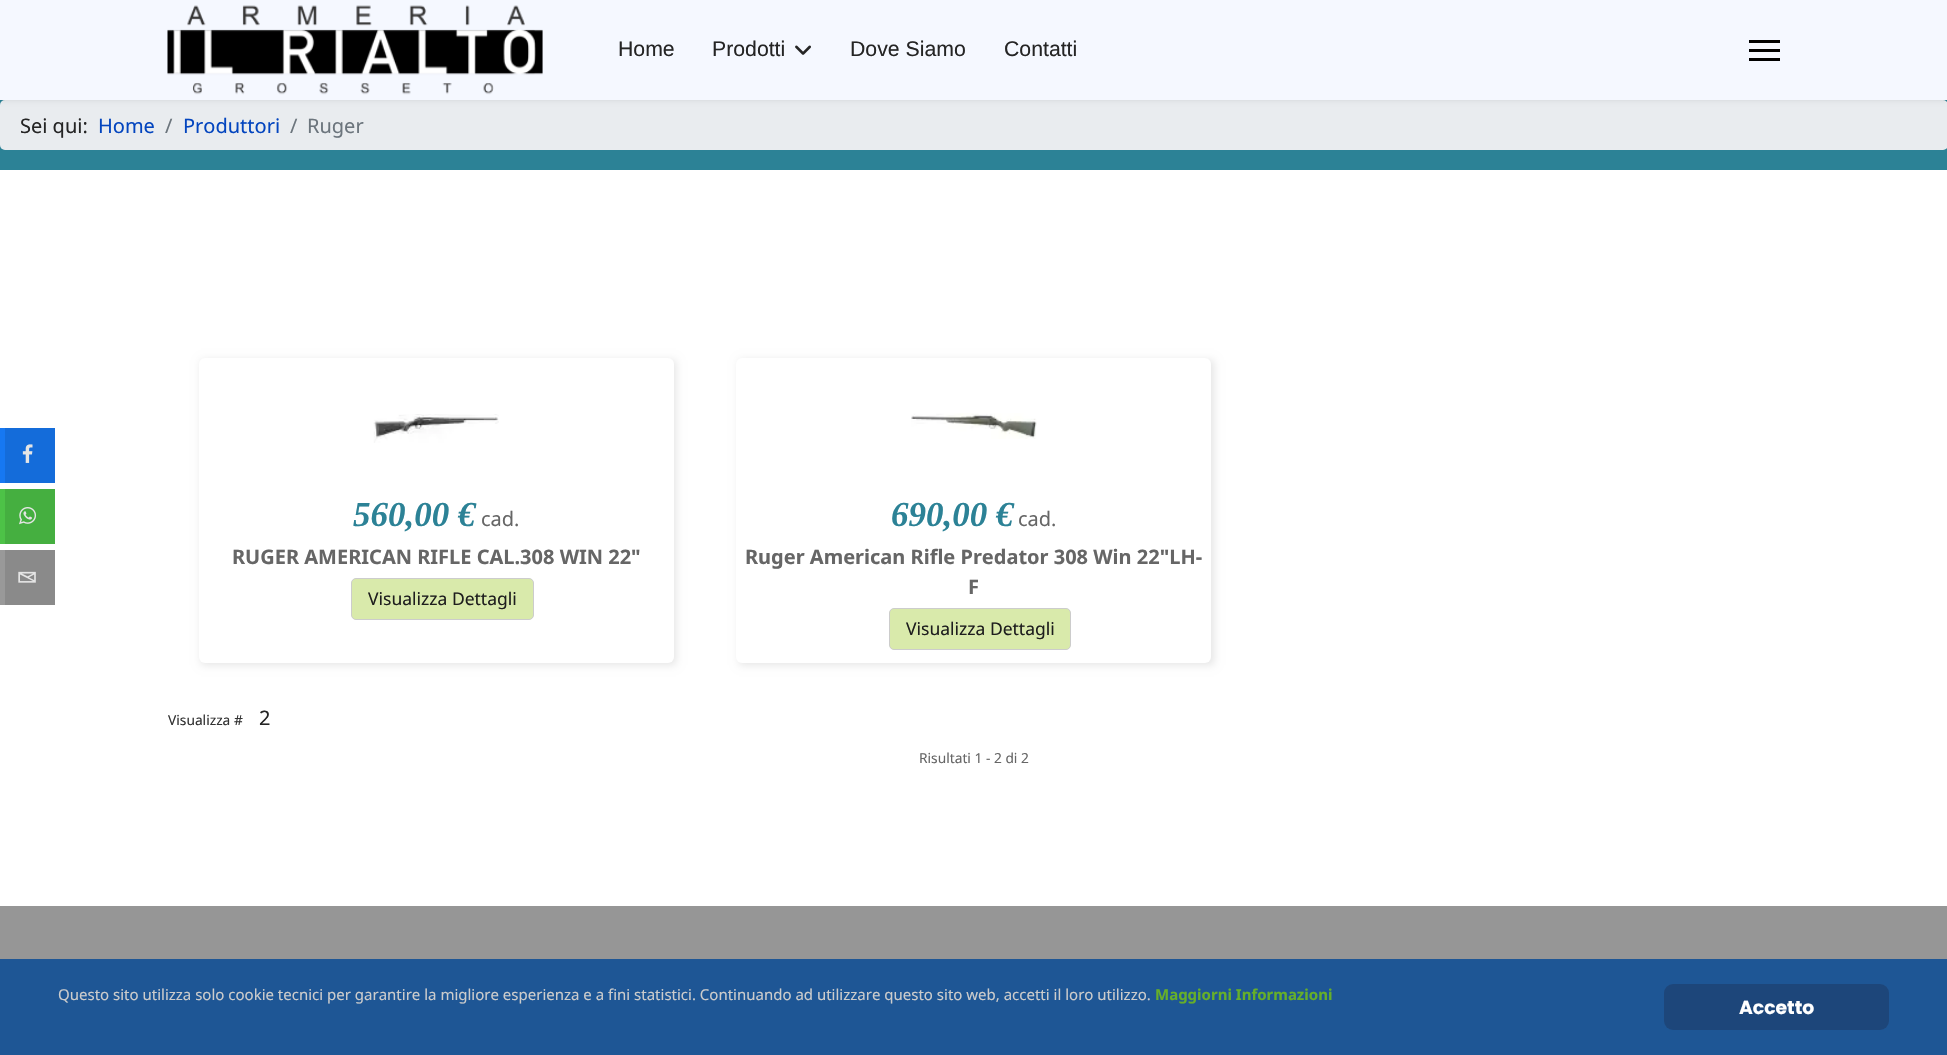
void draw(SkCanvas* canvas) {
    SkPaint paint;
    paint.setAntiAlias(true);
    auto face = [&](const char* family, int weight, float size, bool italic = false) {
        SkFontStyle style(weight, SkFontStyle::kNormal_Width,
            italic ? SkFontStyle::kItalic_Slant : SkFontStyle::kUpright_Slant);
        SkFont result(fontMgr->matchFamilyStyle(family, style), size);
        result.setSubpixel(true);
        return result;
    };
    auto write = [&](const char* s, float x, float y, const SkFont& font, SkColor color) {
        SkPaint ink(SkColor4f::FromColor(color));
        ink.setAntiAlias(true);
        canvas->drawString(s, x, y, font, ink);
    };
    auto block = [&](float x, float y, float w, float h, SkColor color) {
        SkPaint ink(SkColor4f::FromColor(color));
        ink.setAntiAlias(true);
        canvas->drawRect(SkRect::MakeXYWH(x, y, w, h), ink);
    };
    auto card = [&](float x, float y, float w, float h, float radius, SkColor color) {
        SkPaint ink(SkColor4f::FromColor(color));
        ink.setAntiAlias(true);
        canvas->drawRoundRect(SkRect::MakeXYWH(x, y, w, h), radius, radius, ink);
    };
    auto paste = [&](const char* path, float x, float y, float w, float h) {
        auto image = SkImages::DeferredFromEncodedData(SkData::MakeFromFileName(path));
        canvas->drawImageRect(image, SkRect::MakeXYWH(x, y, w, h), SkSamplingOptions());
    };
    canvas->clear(SK_ColorWHITE);
    block(0, 100, 1947, 70, SkColorSetRGB(44, 130, 150));
    card(0, 100, 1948, 50, 5, SkColorSetRGB(233, 236, 239));
    paint.setColor(SkColorSetARGB(26, 0, 0, 0));
    paint.setMaskFilter(SkMaskFilter::MakeBlur(kNormal_SkBlurStyle, 2.5f));
    canvas->drawRect(SkRect::MakeXYWH(0, 0, 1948, 100), paint);
    paint.setMaskFilter(nullptr);
    block(0, 0, 1947, 100, SkColorSetRGB(245, 248, 255));
    paste("pic1.png", 167, 5, 376, 90);
    auto kFont1 = face("Liberation Sans", 400, 21.25f);
    write("Home", 618, 56, kFont1, SkColorSetRGB(37, 37, 37));
    write("Prodotti", 712, 56, kFont1, SkColorSetRGB(37, 37, 37));
    paste("pic2.png", 795, 45, 16, 10);
    write("Dove Siamo", 850, 56, kFont1, SkColorSetRGB(37, 37, 37));
    write("Contatti", 1004, 56, kFont1, SkColorSetRGB(37, 37, 37));
    block(1749, 40, 31, 3, SK_ColorBLACK);
    block(1749, 49, 31, 3, SK_ColorBLACK);
    block(1749, 58, 31, 3, SK_ColorBLACK);
    auto kFont2 = face("Noto Sans", 400, 20);
    write("Sei qui:", 20, 133, kFont2, SkColorSetRGB(37, 37, 37));
    write("Home", 98, 133, kFont2, SkColorSetRGB(3, 69, 191));
    write("/", 165, 133, kFont2, SkColorSetRGB(108, 117, 125));
    write("Produttori", 183, 133, kFont2, SkColorSetRGB(3, 69, 191));
    write("/", 290, 133, kFont2, SkColorSetRGB(108, 117, 125));
    write("Ruger", 307, 133, kFont2, SkColorSetRGB(108, 117, 125));
    paint.setMaskFilter(SkMaskFilter::MakeBlur(kNormal_SkBlurStyle, 4));
    canvas->drawRect(SkRect::MakeXYWH(201, 360, 475, 305), paint);
    paint.setMaskFilter(nullptr);
    card(199, 358, 475, 305, 6, SK_ColorWHITE);
    paste("pic3.png", 373, 414, 126, 29);
    auto kFont3 = face("Liberation Serif", 700, 35, true);
    write("560,00 €", 353, 526, kFont3, SkColorSetRGB(44, 130, 150));
    write("cad.", 481, 526, kFont2, SkColorSetRGB(102, 102, 102));
    auto kFont4 = face("Noto Sans", 700, 20);
    write("RUGER AMERICAN RIFLE CAL.308 WIN 22\"", 232, 564, kFont4, SkColorSetRGB(102, 102, 102));
    paint.setColor(SkColorSetRGB(217, 234, 171));
    canvas->drawRoundRect(SkRect::MakeXYWH(351.5f, 578.5f, 182, 41), 4.5f, 4.5f, paint);
    paint.setStyle(SkPaint::kStroke_Style);
    paint.setStrokeWidth(1);
    paint.setColor(SkColorSetRGB(204, 204, 204));
    canvas->drawRoundRect(SkRect::MakeXYWH(351.5f, 578.5f, 182, 41), 4.5f, 4.5f, paint);
    auto kFont5 = face("Noto Sans", 400, 17.5f);
    write("Visualizza Dettagli", 368, 605, kFont5, SkColorSetRGB(30, 30, 30));
    paint.setStyle(SkPaint::kFill_Style);
    paint.setColor(SkColorSetARGB(26, 0, 0, 0));
    paint.setMaskFilter(SkMaskFilter::MakeBlur(kNormal_SkBlurStyle, 4));
    canvas->drawRect(SkRect::MakeXYWH(739, 360, 475, 305), paint);
    paint.setMaskFilter(nullptr);
    card(736, 358, 475, 305, 6, SK_ColorWHITE);
    paste("pic4.png", 911, 413, 126, 26);
    write("690,00 €", 891, 526, kFont3, SkColorSetRGB(44, 130, 150));
    write("cad.", 1018, 526, kFont2, SkColorSetRGB(102, 102, 102));
    write("Ruger American Rifle Predator 308 Win 22\"LH-", 745, 564, kFont4, SkColorSetRGB(102, 102, 102));
    write("F", 968, 594, kFont4, SkColorSetRGB(102, 102, 102));
    paint.setColor(SkColorSetRGB(217, 234, 171));
    canvas->drawRoundRect(SkRect::MakeXYWH(889.5f, 608.5f, 181, 41), 4.5f, 4.5f, paint);
    paint.setStyle(SkPaint::kStroke_Style);
    paint.setColor(SkColorSetRGB(204, 204, 204));
    canvas->drawRoundRect(SkRect::MakeXYWH(889.5f, 608.5f, 181, 41), 4.5f, 4.5f, paint);
    write("Visualizza Dettagli", 906, 635, kFont5, SkColorSetRGB(30, 30, 30));
    auto kFont6 = face("Noto Sans", 400, 13.75f);
    write("Visualizza #", 168, 725, kFont6, SkColorSetRGB(51, 51, 51));
    write("2", 259, 725, kFont2, SkColorSetRGB(37, 37, 37));
    write("Risultati 1 - 2 di 2", 919, 763, kFont6, SkColorSetRGB(102, 102, 102));
    block(0, 906, 1947, 53, SkColorSetRGB(150, 150, 150));
    block(0, 428, 5, 55, SkColorSetRGB(22, 120, 242));
    block(5, 428, 50, 55, SkColorSetRGB(20, 108, 218));
    paste("pic5.png", 22, 444, 11, 19);
    block(0, 489, 5, 55, SkColorSetRGB(77, 194, 71));
    block(5, 489, 50, 55, SkColorSetRGB(69, 175, 64));
    paste("pic6.png", 19, 507, 18, 18);
    block(0, 550, 5, 55, SkColorSetRGB(153, 153, 153));
    block(5, 550, 50, 55, SkColorSetRGB(138, 138, 138));
    paste("pic7.png", 18, 571, 18, 12);
    block(0, 959, 1947, 96, SkColorSetRGB(30, 86, 149));
    auto kFont7 = face("Noto Sans", 400, 15);
    write("Questo sito utilizza solo cookie tecnici per garantire la migliore esperienza e a fini statistici. Continuando ad utilizzare questo sito web, accetti il loro utilizzo.", 58, 1000, kFont7, SkColorSetRGB(204, 204, 204));
    auto kFont8 = face("Noto Sans", 700, 15);
    write("Maggiorni Informazioni", 1155, 1000, kFont8, SkColorSetRGB(102, 175, 41));
    card(1664, 984, 225, 46, 9, SkColorSetRGB(29, 70, 122));
    auto kFont9 = face("Poppins", 700, 18.75f);
    write("Accetto", 1739, 1014, kFont9, SK_ColorWHITE);
}
